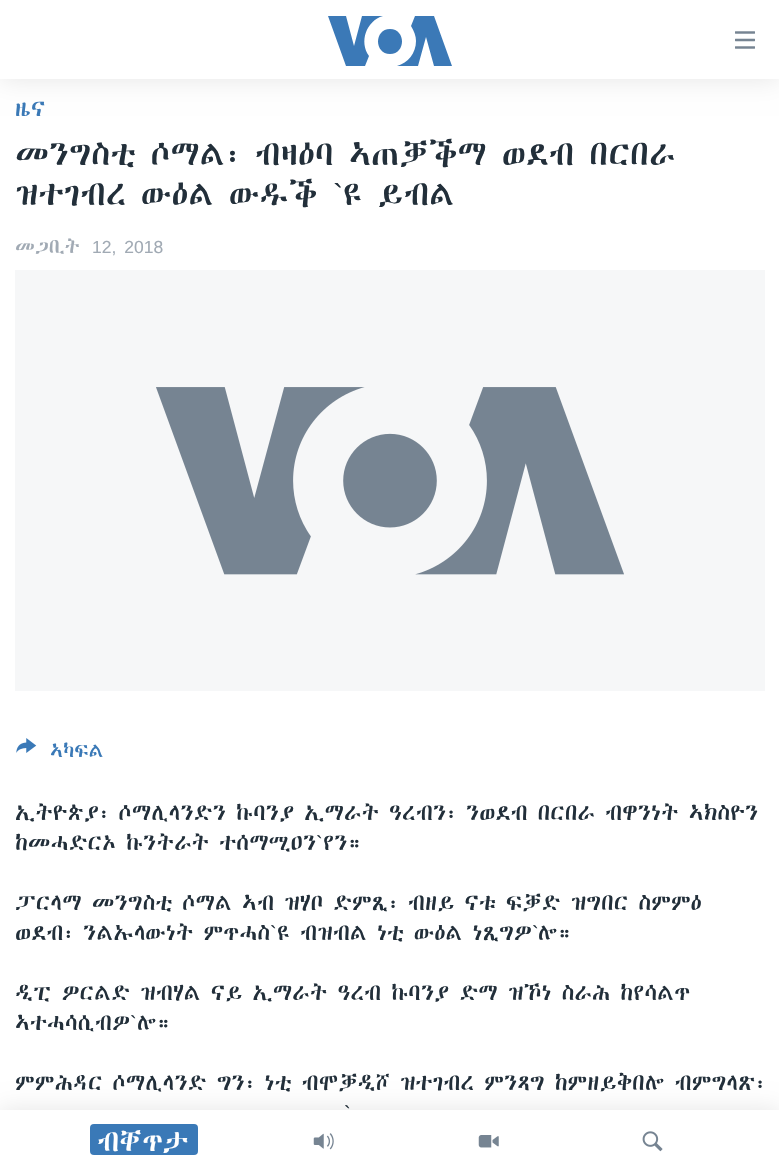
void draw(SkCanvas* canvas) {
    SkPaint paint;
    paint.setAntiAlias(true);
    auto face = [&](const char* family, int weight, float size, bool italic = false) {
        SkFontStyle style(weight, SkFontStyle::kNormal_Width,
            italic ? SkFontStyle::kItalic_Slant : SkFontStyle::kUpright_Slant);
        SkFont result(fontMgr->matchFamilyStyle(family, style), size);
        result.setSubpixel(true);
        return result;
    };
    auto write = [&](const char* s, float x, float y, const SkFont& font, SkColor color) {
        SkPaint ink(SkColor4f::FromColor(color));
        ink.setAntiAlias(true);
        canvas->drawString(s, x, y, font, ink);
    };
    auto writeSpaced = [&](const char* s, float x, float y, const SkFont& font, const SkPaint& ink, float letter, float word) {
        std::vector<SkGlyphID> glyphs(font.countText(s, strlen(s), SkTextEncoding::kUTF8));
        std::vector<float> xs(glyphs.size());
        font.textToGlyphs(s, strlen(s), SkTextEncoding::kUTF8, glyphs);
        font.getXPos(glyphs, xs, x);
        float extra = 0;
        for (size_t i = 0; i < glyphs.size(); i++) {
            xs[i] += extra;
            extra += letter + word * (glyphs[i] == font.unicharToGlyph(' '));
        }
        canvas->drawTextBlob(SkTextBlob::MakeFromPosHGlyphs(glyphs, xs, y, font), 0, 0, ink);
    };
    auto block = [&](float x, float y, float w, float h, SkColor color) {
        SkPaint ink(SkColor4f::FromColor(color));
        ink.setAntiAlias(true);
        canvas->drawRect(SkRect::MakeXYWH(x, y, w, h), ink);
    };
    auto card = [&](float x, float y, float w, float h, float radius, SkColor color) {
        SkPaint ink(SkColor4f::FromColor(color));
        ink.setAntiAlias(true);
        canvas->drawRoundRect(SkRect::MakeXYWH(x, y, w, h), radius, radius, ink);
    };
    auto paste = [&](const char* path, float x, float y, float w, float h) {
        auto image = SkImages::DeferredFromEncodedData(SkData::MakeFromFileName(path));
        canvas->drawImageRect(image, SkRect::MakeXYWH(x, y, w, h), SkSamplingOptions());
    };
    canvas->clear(SK_ColorWHITE);
    auto kFont1 = face("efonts", 400, 20);
    write("ዜና", 15, 116, kFont1, SkColorSetRGB(58, 121, 183));
    auto kFont2 = face("efonts", 400, 30);
    write("መንግስቲ ሶማል፡ ብዛዕባ ኣጠቓቕማ ወደብ በርበራ", 15, 165, kFont2, SkColorSetRGB(34, 47, 58));
    write("ዝተገብረ ውዕል ውዱቕ", 15, 205, kFont2, SkColorSetRGB(34, 47, 58));
    auto kFont3 = face("Liberation Sans", 400, 30);
    write("`", 333, 205, kFont3, SkColorSetRGB(34, 47, 58));
    write("ዩ ይብል", 343, 205, kFont2, SkColorSetRGB(34, 47, 58));
    auto kFont4 = face("efonts", 400, 17.5f);
    write("መጋቢት", 15, 253, kFont4, SkColorSetRGB(161, 170, 180));
    auto kFont5 = face("Liberation Sans", 400, 17.5f);
    paint.setColor(SkColorSetRGB(161, 170, 180));
    writeSpaced("12, 2018", 92, 253, kFont5, paint, 0, 3);
    block(15, 270, 750, 421, SkColorSetRGB(246, 247, 248));
    paste("pic1.png", 156, 387, 468, 188);
    paste("pic2.png", 16, 738, 21, 15);
    write("ኣካፍል", 50, 757, kFont4, SkColorSetRGB(58, 121, 183));
    write("ኢትዮጵያ፡ ሶማሊላንድን ኩባንያ ኢማራት ዓረብን፡ ንወደብ በርበራ ብዋንነት ኣክስዮን", 15, 820, kFont1, SkColorSetRGB(34, 47, 58));
    write("ከመሓድርኦ ኩንትራት ተሰማሚዐን", 15, 850, kFont1, SkColorSetRGB(34, 47, 58));
    auto kFont6 = face("Liberation Sans", 400, 20);
    write("`", 316, 850, kFont6, SkColorSetRGB(34, 47, 58));
    write("የን።", 323, 850, kFont1, SkColorSetRGB(34, 47, 58));
    write("ፓርላማ መንግስቲ ሶማል ኣብ ዝሃቦ ድምጺ፡ ብዘይ ናቱ ፍቓድ ዝግበር ስምምዕ", 15, 910, kFont1, SkColorSetRGB(34, 47, 58));
    write("ወደብ፡ ንልኡላውነት ምጥሓስ", 15, 940, kFont1, SkColorSetRGB(34, 47, 58));
    write("`", 270, 940, kFont6, SkColorSetRGB(34, 47, 58));
    write("ዩ ብዝብል ነቲ ውዕል ነጺግዎ", 277, 940, kFont1, SkColorSetRGB(34, 47, 58));
    write("`", 532, 940, kFont6, SkColorSetRGB(34, 47, 58));
    write("ሎ።", 538, 940, kFont1, SkColorSetRGB(34, 47, 58));
    write("ዲፒ ዎርልድ ዝብሃል ናይ ኢማራት ዓረብ ኩባንያ ድማ ዝኾነ ስራሕ ከየሳልጥ", 15, 1000, kFont1, SkColorSetRGB(34, 47, 58));
    write("ኣተሓሳሲብዎ", 15, 1030, kFont1, SkColorSetRGB(34, 47, 58));
    write("`", 130, 1030, kFont6, SkColorSetRGB(34, 47, 58));
    write("ሎ።", 137, 1030, kFont1, SkColorSetRGB(34, 47, 58));
    write("ምምሕዳር ሶማሊላንድ ግን፡ ነቲ ብሞቓዲሾ ዝተገብረ ምንጻግ ከምዘይቅበሎ ብምግላጽ፡", 15, 1090, kFont1, SkColorSetRGB(34, 47, 58));
    write("`", 344, 1120, kFont6, SkColorSetRGB(34, 47, 58));
    paint.setColor(SkColorSetARGB(26, 0, 0, 0));
    paint.setMaskFilter(SkMaskFilter::MakeBlur(kNormal_SkBlurStyle, 12.5f));
    canvas->drawRect(SkRect::MakeXYWH(0, 0, 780, 79), paint);
    paint.setMaskFilter(nullptr);
    block(0, 0, 779, 79, SK_ColorWHITE);
    paint.setColor(SkColorSetRGB(59, 121, 183));
    canvas->drawPath(SkPathBuilder().moveTo(369, 56).lineTo(365, 66).lineTo(346, 66).lineTo(328, 16).lineTo(346, 16).lineTo(354, 46).lineTo(362, 16).lineTo(383, 16).cubicTo(366, 21, 359, 42, 369, 56).close().moveTo(390, 29).cubicTo(374, 29, 374, 54, 390, 54).cubicTo(406, 54, 406, 29, 390, 29).close().moveTo(416, 41).cubicTo(416, 53, 408, 63, 397, 66).lineTo(418, 66).lineTo(426, 37).lineTo(434, 66).lineTo(452, 66).lineTo(434, 16).lineTo(415, 16).lineTo(411, 26).cubicTo(414, 31, 416, 36, 416, 41).close().detach(), paint);
    paste("pic3.png", 735, 31, 20, 18);
    paint.setColor(SkColorSetARGB(26, 0, 0, 0));
    paint.setMaskFilter(SkMaskFilter::MakeBlur(kNormal_SkBlurStyle, 12.5f));
    canvas->drawRect(SkRect::MakeXYWH(0, 1110, 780, 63), paint);
    paint.setMaskFilter(nullptr);
    block(0, 1110, 779, 62, SK_ColorWHITE);
    card(90, 1124, 108, 31, 4, SkColorSetRGB(58, 121, 183));
    auto kFont7 = face("efonts", 400, 26);
    write("ብቐጥታ", 97, 1151, kFont7, SK_ColorWHITE);
    paste("pic4.png", 313, 1133, 21, 17);
    paste("pic5.png", 478, 1135, 21, 13);
    paste("pic6.png", 642, 1131, 21, 21);
}
